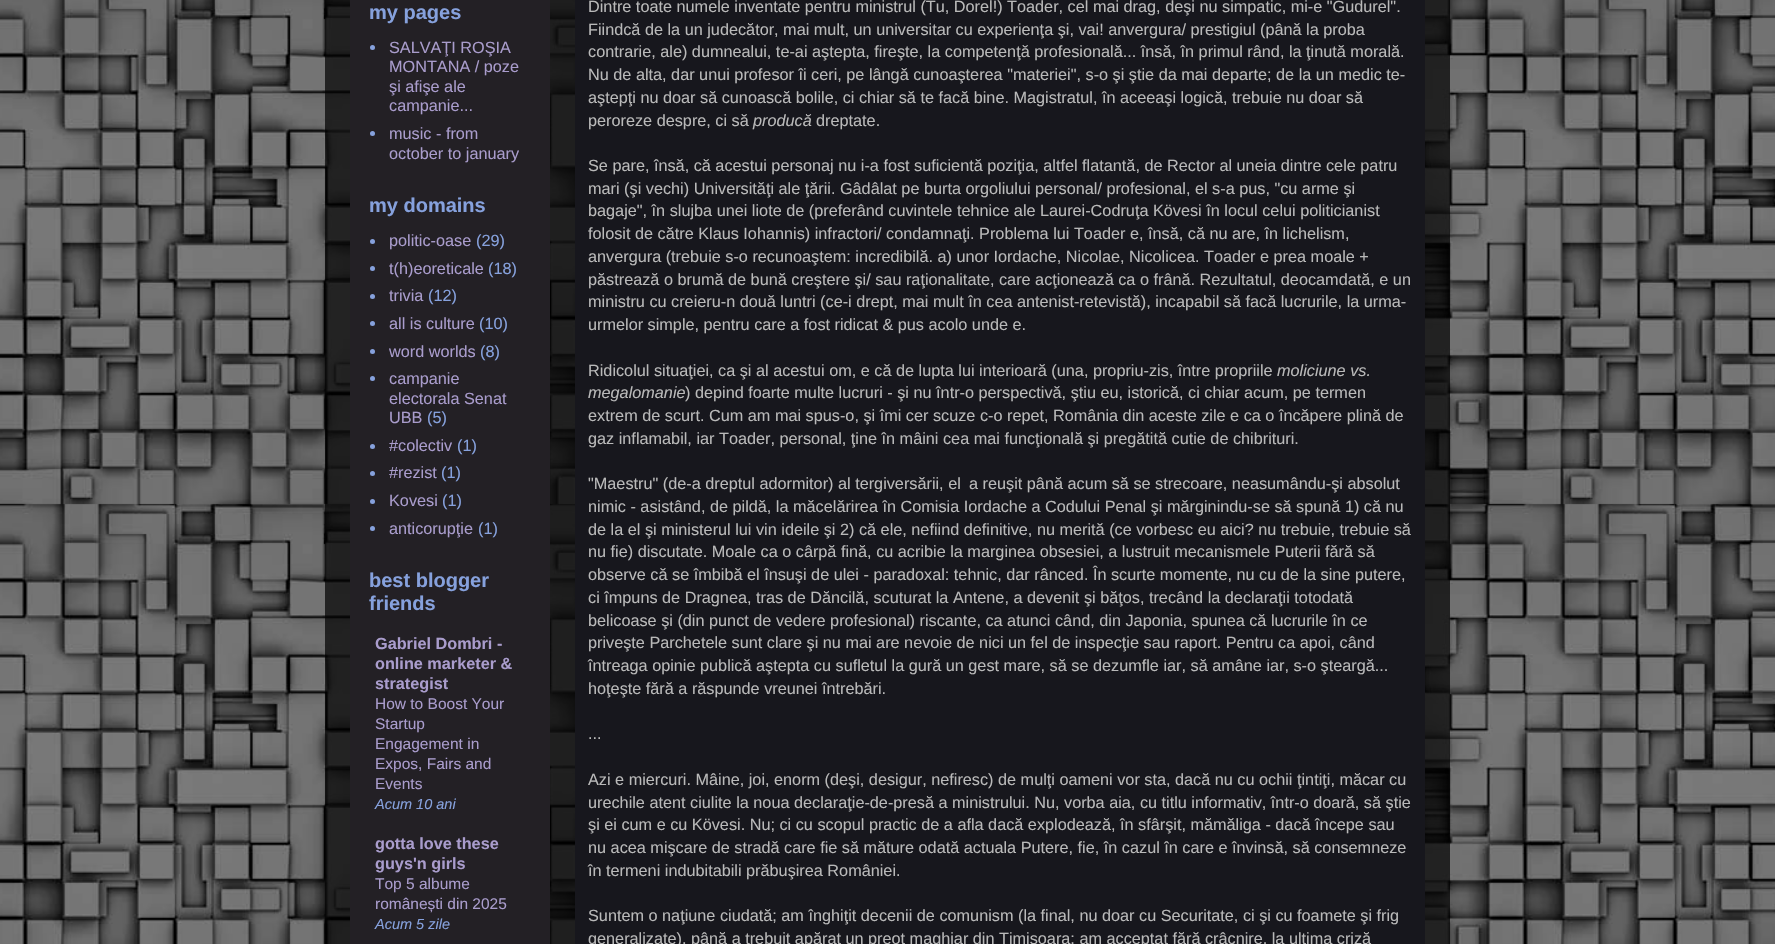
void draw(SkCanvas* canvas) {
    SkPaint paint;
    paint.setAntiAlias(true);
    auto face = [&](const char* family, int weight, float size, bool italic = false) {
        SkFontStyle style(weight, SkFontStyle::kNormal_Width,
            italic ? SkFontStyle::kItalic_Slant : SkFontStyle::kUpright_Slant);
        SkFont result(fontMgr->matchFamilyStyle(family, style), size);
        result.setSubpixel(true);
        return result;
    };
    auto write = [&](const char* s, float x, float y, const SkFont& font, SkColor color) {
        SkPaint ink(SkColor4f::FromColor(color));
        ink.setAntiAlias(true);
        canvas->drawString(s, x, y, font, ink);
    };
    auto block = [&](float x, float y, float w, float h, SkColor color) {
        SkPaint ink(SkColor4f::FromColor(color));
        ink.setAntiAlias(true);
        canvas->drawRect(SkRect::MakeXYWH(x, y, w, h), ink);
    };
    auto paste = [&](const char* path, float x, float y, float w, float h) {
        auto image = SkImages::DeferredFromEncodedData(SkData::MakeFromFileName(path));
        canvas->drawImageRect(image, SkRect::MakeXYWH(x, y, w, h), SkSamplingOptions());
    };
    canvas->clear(SK_ColorWHITE);
    paste("pic1.png", 0, 0, 1775, 944);
    block(325, 0, 1125, 944, SkColorSetARGB(179, 0, 0, 0));
    block(350, 0, 200, 944, SkColorSetRGB(35, 32, 37));
    auto kFont1 = face("Liberation Sans", 700, 20);
    write("my pages", 369, 19, kFont1, SkColorSetRGB(134, 161, 221));
    paint.setColor(SkColorSetRGB(134, 161, 221));
    canvas->drawCircle(372.5f, 47.5f, 2.5f, paint);
    auto kFont2 = face("Liberation Sans", 400, 16.25f);
    write("SALVAŢI ROŞIA", 389, 53, kFont2, SkColorSetRGB(169, 156, 204));
    write("MONTANA / poze", 389, 72, kFont2, SkColorSetRGB(169, 156, 204));
    write("şi afişe ale", 389, 92, kFont2, SkColorSetRGB(169, 156, 204));
    write("campanie...", 389, 111, kFont2, SkColorSetRGB(169, 156, 204));
    canvas->drawCircle(372.5f, 133.5f, 2.5f, paint);
    write("music - from", 389, 139, kFont2, SkColorSetRGB(169, 156, 204));
    write("october to january", 389, 159, kFont2, SkColorSetRGB(169, 156, 204));
    write("my domains", 369, 212, kFont1, SkColorSetRGB(134, 161, 221));
    canvas->drawCircle(372.5f, 241.5f, 2.5f, paint);
    write("politic-oase", 389, 246, kFont2, SkColorSetRGB(169, 156, 204));
    write("(29)", 476, 246, kFont2, SkColorSetRGB(134, 161, 221));
    canvas->drawCircle(372.5f, 268.5f, 2.5f, paint);
    write("t(h)eoreticale", 389, 274, kFont2, SkColorSetRGB(169, 156, 204));
    write("(18)", 488, 274, kFont2, SkColorSetRGB(134, 161, 221));
    canvas->drawCircle(372.5f, 296.5f, 2.5f, paint);
    write("trivia", 389, 301, kFont2, SkColorSetRGB(169, 156, 204));
    write("(12)", 428, 301, kFont2, SkColorSetRGB(134, 161, 221));
    canvas->drawCircle(372.5f, 323.5f, 2.5f, paint);
    write("all is culture", 389, 329, kFont2, SkColorSetRGB(169, 156, 204));
    write("(10)", 479, 329, kFont2, SkColorSetRGB(134, 161, 221));
    canvas->drawCircle(372.5f, 351.5f, 2.5f, paint);
    write("word worlds", 389, 357, kFont2, SkColorSetRGB(169, 156, 204));
    write("(8)", 480, 357, kFont2, SkColorSetRGB(134, 161, 221));
    canvas->drawCircle(372.5f, 378.5f, 2.5f, paint);
    write("campanie", 389, 384, kFont2, SkColorSetRGB(169, 156, 204));
    write("electorala Senat", 389, 404, kFont2, SkColorSetRGB(169, 156, 204));
    write("UBB", 389, 423, kFont2, SkColorSetRGB(169, 156, 204));
    write("(5)", 427, 423, kFont2, SkColorSetRGB(134, 161, 221));
    canvas->drawCircle(372.5f, 446.5f, 2.5f, paint);
    write("#colectiv", 389, 451, kFont2, SkColorSetRGB(169, 156, 204));
    write("(1)", 457, 451, kFont2, SkColorSetRGB(134, 161, 221));
    canvas->drawCircle(372.5f, 473.5f, 2.5f, paint);
    write("#rezist", 389, 478, kFont2, SkColorSetRGB(169, 156, 204));
    write("(1)", 441, 478, kFont2, SkColorSetRGB(134, 161, 221));
    canvas->drawCircle(372.5f, 501.5f, 2.5f, paint);
    write("Kovesi", 389, 506, kFont2, SkColorSetRGB(169, 156, 204));
    write("(1)", 442, 506, kFont2, SkColorSetRGB(134, 161, 221));
    canvas->drawCircle(372.5f, 528.5f, 2.5f, paint);
    write("anticorupţie", 389, 534, kFont2, SkColorSetRGB(169, 156, 204));
    write("(1)", 478, 534, kFont2, SkColorSetRGB(134, 161, 221));
    write("best blogger", 369, 587, kFont1, SkColorSetRGB(134, 161, 221));
    write("friends", 369, 610, kFont1, SkColorSetRGB(134, 161, 221));
    auto kFont3 = face("Liberation Sans", 700, 16.25f);
    write("Gabriel Dombri -", 375, 649, kFont3, SkColorSetRGB(169, 156, 204));
    write("online marketer &", 375, 669, kFont3, SkColorSetRGB(169, 156, 204));
    write("strategist", 375, 689, kFont3, SkColorSetRGB(169, 156, 204));
    auto kFont4 = face("Liberation Sans", 400, 15.5f);
    write("How to Boost Your", 375, 709, kFont4, SkColorSetRGB(169, 156, 204));
    write("Startup", 375, 729, kFont4, SkColorSetRGB(169, 156, 204));
    write("Engagement in", 375, 749, kFont4, SkColorSetRGB(169, 156, 204));
    write("Expos, Fairs and", 375, 769, kFont4, SkColorSetRGB(169, 156, 204));
    write("Events", 375, 789, kFont4, SkColorSetRGB(169, 156, 204));
    auto kFont5 = face("Liberation Sans", 400, 14.5f, true);
    write("Acum 10 ani", 375, 809, kFont5, SkColorSetRGB(134, 161, 221));
    write("gotta love these", 375, 849, kFont3, SkColorSetRGB(169, 156, 204));
    write("guys'n girls", 375, 869, kFont3, SkColorSetRGB(169, 156, 204));
    write("Top 5 albume", 375, 889, kFont4, SkColorSetRGB(169, 156, 204));
    write("românești din 2025", 375, 909, kFont4, SkColorSetRGB(169, 156, 204));
    write("Acum 5 zile", 375, 929, kFont5, SkColorSetRGB(134, 161, 221));
    block(575, 0, 850, 944, SkColorSetRGB(23, 23, 29));
    write("Dintre toate numele inventate pentru ministrul (Tu, Dorel!) Toader, cel mai drag, deşi nu simpatic, mi-e \"Gudurel\".", 588, 12, kFont2, SkColorSetRGB(185, 185, 185));
    write("Fiindcă de la un judecător, mai mult, un universitar cu experienţa şi, vai! anvergura/ prestigiul (până la proba", 588, 35, kFont2, SkColorSetRGB(185, 185, 185));
    write("contrarie, ale) dumnealui, te-ai aştepta, fireşte, la competenţă profesională... însă, în primul rând, la ţinută morală.", 588, 57, kFont2, SkColorSetRGB(185, 185, 185));
    write("Nu de alta, dar unui profesor îi ceri, pe lângă cunoaşterea \"materiei\", s-o şi ştie da mai departe; de la un medic te-", 588, 80, kFont2, SkColorSetRGB(185, 185, 185));
    write("aştepţi nu doar să cunoască bolile, ci chiar să te facă bine. Magistratul, în aceeaşi logică, trebuie nu doar să", 588, 103, kFont2, SkColorSetRGB(185, 185, 185));
    write("peroreze despre, ci să", 588, 126, kFont2, SkColorSetRGB(185, 185, 185));
    auto kFont6 = face("Liberation Sans", 400, 16.25f, true);
    write("producă", 753, 126, kFont6, SkColorSetRGB(185, 185, 185));
    write("dreptate.", 816, 126, kFont2, SkColorSetRGB(185, 185, 185));
    write("Se pare, însă, că acestui personaj nu i-a fost suficientă poziţia, altfel flatantă, de Rector al uneia dintre cele patru", 588, 171, kFont2, SkColorSetRGB(185, 185, 185));
    write("mari (şi vechi) Universităţi ale ţării. Gâdâlat pe burta orgoliului personal/ profesional, el s-a pus, \"cu arme şi", 588, 194, kFont2, SkColorSetRGB(185, 185, 185));
    write("bagaje\", în slujba unei liote de (preferând cuvintele tehnice ale Laurei-Codruţa Kövesi în locul celui politicianist", 588, 216, kFont2, SkColorSetRGB(185, 185, 185));
    write("folosit de către Klaus Iohannis) infractori/ condamnaţi. Problema lui Toader e, însă, că nu are, în lichelism,", 588, 239, kFont2, SkColorSetRGB(185, 185, 185));
    write("anvergura (trebuie s-o recunoaştem: incredibilă. a) unor Iordache, Nicolae, Nicolicea. Toader e prea moale +", 588, 262, kFont2, SkColorSetRGB(185, 185, 185));
    write("păstrează o brumă de bună creştere şi/ sau raţionalitate, care acţionează ca o frână. Rezultatul, deocamdată, e un", 588, 285, kFont2, SkColorSetRGB(185, 185, 185));
    write("ministru cu creieru-n două luntri (ce-i drept, mai mult în cea antenist-retevistă), incapabil să facă lucrurile, la urma-", 588, 307, kFont2, SkColorSetRGB(185, 185, 185));
    write("urmelor simple, pentru care a fost ridicat & pus acolo unde e.", 588, 330, kFont2, SkColorSetRGB(185, 185, 185));
    write("Ridicolul situaţiei, ca şi al acestui om, e că de lupta lui interioară (una, propriu-zis, între propriile", 588, 376, kFont2, SkColorSetRGB(185, 185, 185));
    write("moliciune vs.", 1277, 376, kFont6, SkColorSetRGB(185, 185, 185));
    write("megalomanie", 588, 398, kFont6, SkColorSetRGB(185, 185, 185));
    write(") depind foarte multe lucruri - şi nu într-o perspectivă, ştiu eu, istorică, ci chiar acum, pe termen", 685, 398, kFont2, SkColorSetRGB(185, 185, 185));
    write("extrem de scurt. Cum am mai spus-o, şi îmi cer scuze c-o repet, România din aceste zile e ca o încăpere plină de", 588, 421, kFont2, SkColorSetRGB(185, 185, 185));
    write("gaz inflamabil, iar Toader, personal, ţine în mâini cea mai funcţională şi pregătită cutie de chibrituri.", 588, 444, kFont2, SkColorSetRGB(185, 185, 185));
    write("\"Maestru\" (de-a dreptul adormitor) al tergiversării, el", 588, 489, kFont2, SkColorSetRGB(185, 185, 185));
    write("a reuşit până acum să se strecoare, neasumându-şi absolut", 969, 489, kFont2, SkColorSetRGB(185, 185, 185));
    write("nimic - asistând, de pildă, la măcelărirea în Comisia Iordache a Codului Penal şi mărginindu-se să spună 1) că nu", 588, 512, kFont2, SkColorSetRGB(185, 185, 185));
    write("de la el şi ministerul lui vin ideile şi 2) că ele, nefiind definitive, nu merită (ce vorbesc eu aici? nu trebuie, trebuie să", 588, 535, kFont2, SkColorSetRGB(185, 185, 185));
    write("nu fie) discutate. Moale ca o cârpă fină, cu acribie la marginea obsesiei, a lustruit mecanismele Puterii fără să", 588, 557, kFont2, SkColorSetRGB(185, 185, 185));
    write("observe că se îmbibă el însuşi de ulei - paradoxal: tehnic, dar rânced. În scurte momente, nu cu de la sine putere,", 588, 580, kFont2, SkColorSetRGB(185, 185, 185));
    write("ci împuns de Dragnea, tras de Dăncilă, scuturat la Antene, a devenit şi băţos, trecând la declaraţii totodată", 588, 603, kFont2, SkColorSetRGB(185, 185, 185));
    write("belicoase şi (din punct de vedere profesional) riscante, ca atunci când, din Japonia, spunea că lucrurile în ce", 588, 626, kFont2, SkColorSetRGB(185, 185, 185));
    write("priveşte Parchetele sunt clare şi nu mai are nevoie de nici un fel de inspecţie sau raport. Pentru ca apoi, când", 588, 648, kFont2, SkColorSetRGB(185, 185, 185));
    write("întreaga opinie publică aştepta cu sufletul la gură un gest mare, să se dezumfle iar, să amâne iar, s-o şteargă...", 588, 671, kFont2, SkColorSetRGB(185, 185, 185));
    write("hoţeşte fără a răspunde vreunei întrebări.", 588, 694, kFont2, SkColorSetRGB(185, 185, 185));
    write("...", 588, 739, kFont2, SkColorSetRGB(185, 185, 185));
    write("Azi e miercuri. Mâine, joi, enorm (deşi, desigur, nefiresc) de mulţi oameni vor sta, dacă nu cu ochii ţintiţi, măcar cu", 588, 785, kFont2, SkColorSetRGB(185, 185, 185));
    write("urechile atent ciulite la noua declaraţie-de-presă a ministrului. Nu, vorba aia, cu titlu informativ, într-o doară, să ştie", 588, 808, kFont2, SkColorSetRGB(185, 185, 185));
    write("şi ei cum e cu Kövesi. Nu; ci cu scopul practic de a afla dacă explodează, în sfârşit, mămăliga - dacă începe sau", 588, 830, kFont2, SkColorSetRGB(185, 185, 185));
    write("nu acea mişcare de stradă care fie să măture odată actuala Putere, fie, în cazul în care e învinsă, să consemneze", 588, 853, kFont2, SkColorSetRGB(185, 185, 185));
    write("în termeni indubitabili prăbuşirea României.", 588, 876, kFont2, SkColorSetRGB(185, 185, 185));
    write("Suntem o naţiune ciudată; am înghiţit decenii de comunism (la final, nu doar cu Securitate, ci şi cu foamete şi frig", 588, 921, kFont2, SkColorSetRGB(185, 185, 185));
    write("generalizate), până a trebuit apărat un preot maghiar din Timişoara; am acceptat fără crâcnire, la ultima criză", 588, 944, kFont2, SkColorSetRGB(185, 185, 185));
}
